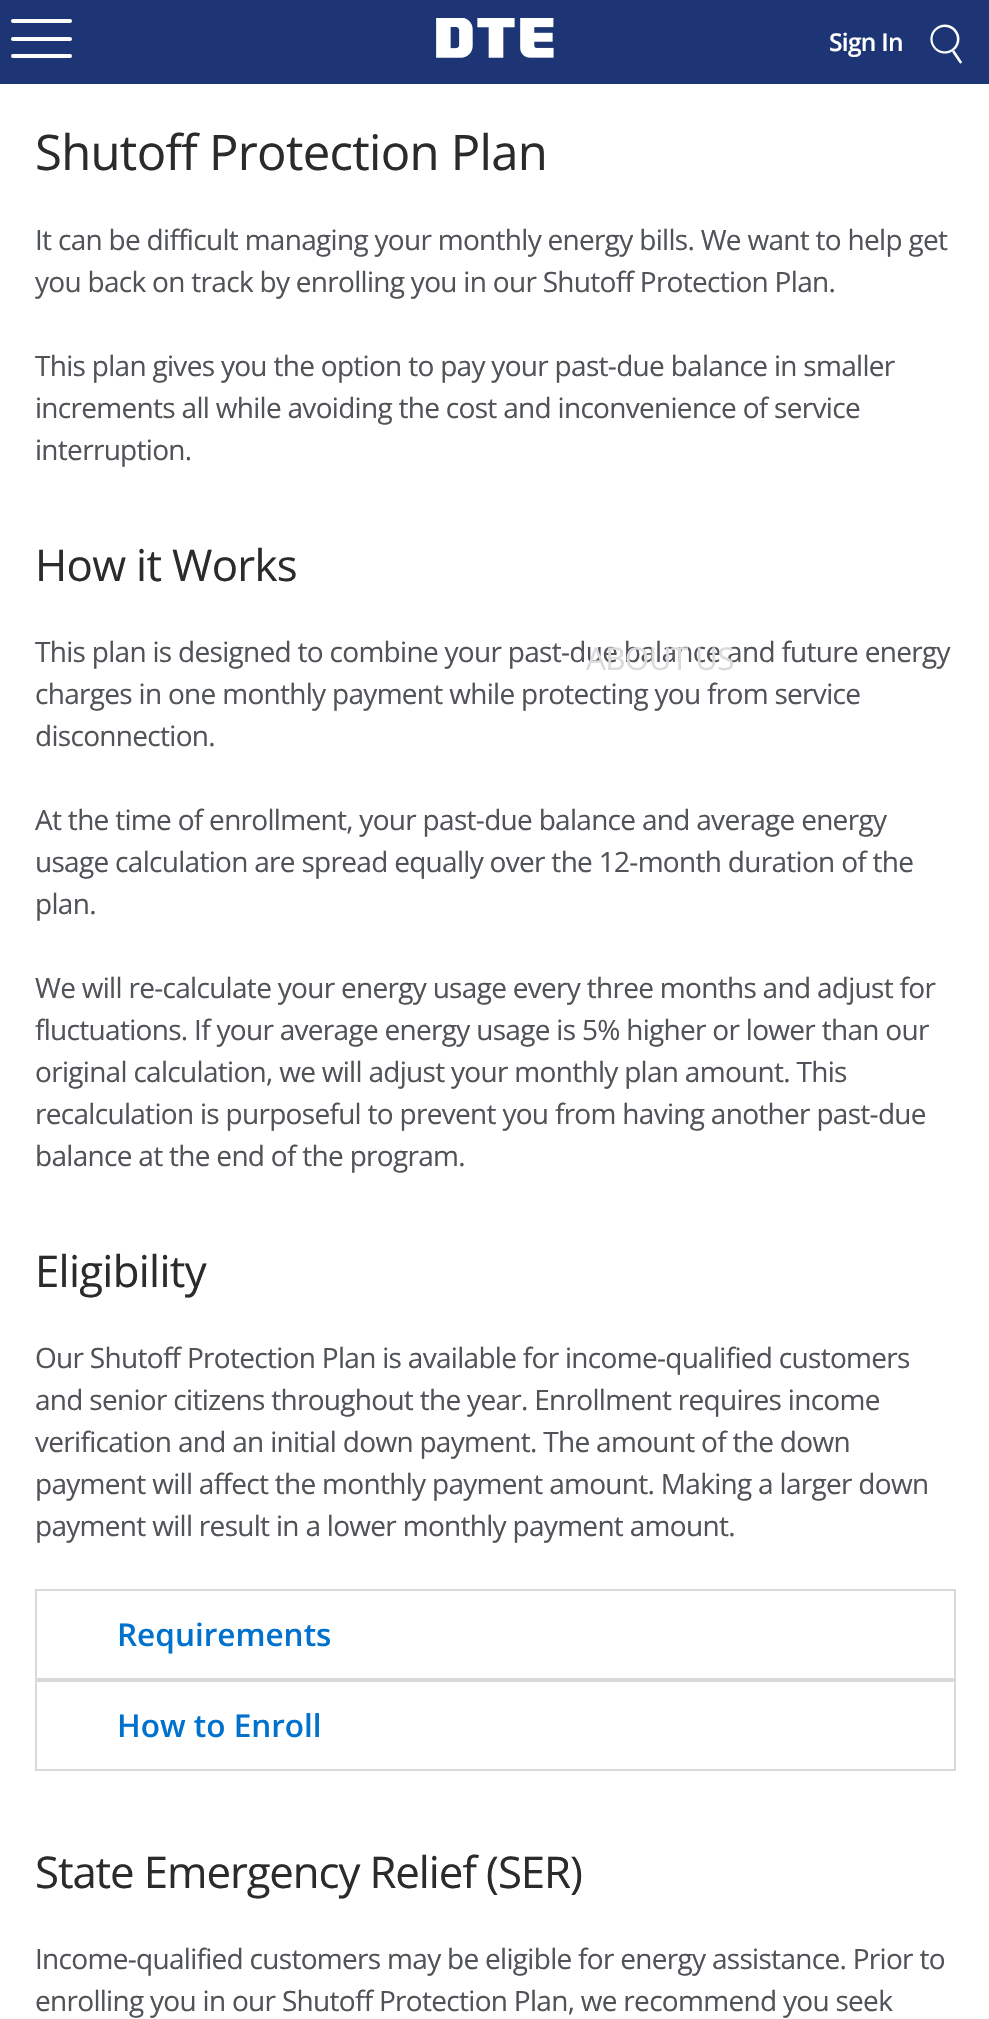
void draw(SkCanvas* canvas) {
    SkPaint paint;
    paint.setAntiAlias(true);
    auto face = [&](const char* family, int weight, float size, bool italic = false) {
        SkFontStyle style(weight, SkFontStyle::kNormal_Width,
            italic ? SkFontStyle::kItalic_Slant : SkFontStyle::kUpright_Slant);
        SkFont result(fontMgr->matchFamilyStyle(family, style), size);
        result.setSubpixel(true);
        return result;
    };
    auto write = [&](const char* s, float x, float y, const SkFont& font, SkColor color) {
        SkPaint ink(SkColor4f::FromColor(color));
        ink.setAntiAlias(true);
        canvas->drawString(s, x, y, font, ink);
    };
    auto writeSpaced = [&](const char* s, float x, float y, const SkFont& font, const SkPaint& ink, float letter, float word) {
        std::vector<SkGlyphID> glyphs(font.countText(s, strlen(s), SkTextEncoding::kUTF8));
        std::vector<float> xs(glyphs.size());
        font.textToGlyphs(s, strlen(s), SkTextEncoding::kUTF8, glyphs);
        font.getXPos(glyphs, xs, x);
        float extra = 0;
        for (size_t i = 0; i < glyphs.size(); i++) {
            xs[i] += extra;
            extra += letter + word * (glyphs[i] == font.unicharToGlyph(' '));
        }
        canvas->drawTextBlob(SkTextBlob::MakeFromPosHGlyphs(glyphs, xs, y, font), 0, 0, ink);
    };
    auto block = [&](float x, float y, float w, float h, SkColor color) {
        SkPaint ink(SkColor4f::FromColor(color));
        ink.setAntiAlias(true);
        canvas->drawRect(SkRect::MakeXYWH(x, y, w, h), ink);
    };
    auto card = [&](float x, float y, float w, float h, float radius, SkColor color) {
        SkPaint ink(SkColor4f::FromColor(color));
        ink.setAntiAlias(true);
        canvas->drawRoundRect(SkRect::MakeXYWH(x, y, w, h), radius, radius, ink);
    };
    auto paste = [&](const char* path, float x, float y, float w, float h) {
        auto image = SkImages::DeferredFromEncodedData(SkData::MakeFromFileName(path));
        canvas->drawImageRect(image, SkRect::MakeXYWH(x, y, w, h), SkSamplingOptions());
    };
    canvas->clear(SK_ColorWHITE);
    block(0, 0, 989, 84, SkColorSetRGB(30, 53, 117));
    paste("pic1.png", 436, 18, 118, 40);
    auto kFont1 = face("Open Sans", 600, 24.5f);
    paint.setColor(SK_ColorWHITE);
    writeSpaced("Sign In", 829, 51, kFont1, paint, -0.7f, 0);
    paste("pic2.png", 930, 24, 32, 40);
    card(11, 37, 61, 4, 2, SK_ColorWHITE);
    card(11, 19, 61, 4, 2, SK_ColorWHITE);
    card(11, 54, 61, 4, 2, SK_ColorWHITE);
    auto kFont2 = face("Open Sans", 400, 28);
    paint.setColor(SkColorSetRGB(80, 83, 87));
    writeSpaced("This plan is designed to combine your past-due balance and future energy", 35, 662, kFont2, paint, -0.7f, 0);
    auto kFont3 = face("Open Sans", 400, 31.5f);
    paint.setColor(SkColorSetRGB(219, 219, 220));
    writeSpaced("ABOUT US", 586, 670, kFont3, paint, -0.7f, 0);
    auto kFont4 = face("Open Sans", 400, 49);
    paint.setColor(SkColorSetRGB(43, 43, 43));
    writeSpaced("Shutoff Protection Plan", 35, 170, kFont4, paint, -0.7f, 0);
    paint.setColor(SkColorSetRGB(80, 83, 87));
    writeSpaced("It can be difficult managing your monthly energy bills. We want to help get", 35, 250, kFont2, paint, -0.7f, 0);
    writeSpaced("you back on track by enrolling you in our Shutoff Protection Plan.", 35, 292, kFont2, paint, -0.7f, 0);
    writeSpaced("This plan gives you the option to pay your past-due balance in smaller", 35, 376, kFont2, paint, -0.7f, 0);
    writeSpaced("increments all while avoiding the cost and inconvenience of service", 35, 418, kFont2, paint, -0.7f, 0);
    writeSpaced("interruption.", 35, 460, kFont2, paint, -0.7f, 0);
    auto kFont5 = face("Open Sans", 400, 43.75f);
    paint.setColor(SkColorSetRGB(43, 43, 43));
    writeSpaced("How it Works", 35, 581, kFont5, paint, -0.7f, 0);
    paint.setColor(SkColorSetRGB(80, 83, 87));
    writeSpaced("charges in one monthly payment while protecting you from service", 35, 704, kFont2, paint, -0.7f, 0);
    writeSpaced("disconnection.", 35, 746, kFont2, paint, -0.7f, 0);
    writeSpaced("At the time of enrollment, your past-due balance and average energy", 35, 830, kFont2, paint, -0.7f, 0);
    writeSpaced("usage calculation are spread equally over the 12-month duration of the", 35, 872, kFont2, paint, -0.7f, 0);
    writeSpaced("plan.", 35, 914, kFont2, paint, -0.7f, 0);
    writeSpaced("We will re-calculate your energy usage every three months and adjust for", 35, 998, kFont2, paint, -0.7f, 0);
    writeSpaced("fluctuations. If your average energy usage is 5% higher or lower than our", 35, 1040, kFont2, paint, -0.7f, 0);
    writeSpaced("original calculation, we will adjust your monthly plan amount. This", 35, 1082, kFont2, paint, -0.7f, 0);
    writeSpaced("recalculation is purposeful to prevent you from having another past-due", 35, 1124, kFont2, paint, -0.7f, 0);
    writeSpaced("balance at the end of the program.", 35, 1166, kFont2, paint, -0.7f, 0);
    paint.setColor(SkColorSetRGB(43, 43, 43));
    writeSpaced("Eligibility", 35, 1287, kFont5, paint, -0.7f, 0);
    paint.setColor(SkColorSetRGB(80, 83, 87));
    writeSpaced("Our Shutoff Protection Plan is available for income-qualified customers", 35, 1368, kFont2, paint, -0.7f, 0);
    writeSpaced("and senior citizens throughout the year. Enrollment requires income", 35, 1410, kFont2, paint, -0.7f, 0);
    writeSpaced("verification and an initial down payment. The amount of the down", 35, 1452, kFont2, paint, -0.7f, 0);
    writeSpaced("payment will affect the monthly payment amount. Making a larger down", 35, 1494, kFont2, paint, -0.7f, 0);
    writeSpaced("payment will result in a lower monthly payment amount.", 35, 1536, kFont2, paint, -0.7f, 0);
    paint.setStyle(SkPaint::kStroke_Style);
    paint.setStrokeWidth(2);
    paint.setColor(SkColorSetRGB(217, 217, 217));
    canvas->drawRect(SkRect::MakeXYWH(36, 1590, 919, 89), paint);
    auto kFont6 = face("Open Sans", 600, 31.5f);
    write("Requirements", 117, 1646, kFont6, SkColorSetRGB(0, 114, 206));
    canvas->drawRect(SkRect::MakeXYWH(36, 1681, 919, 89), paint);
    write("How to Enroll", 117, 1737, kFont6, SkColorSetRGB(0, 114, 206));
    paint.setStyle(SkPaint::kFill_Style);
    paint.setColor(SkColorSetRGB(43, 43, 43));
    writeSpaced("State Emergency Relief (SER)", 35, 1888, kFont5, paint, -1.1f, 0);
    paint.setColor(SkColorSetRGB(80, 83, 87));
    writeSpaced("Income-qualified customers may be eligible for energy assistance. Prior to", 35, 1969, kFont2, paint, -0.7f, 0);
    writeSpaced("enrolling you in our Shutoff Protection Plan, we recommend you seek", 35, 2011, kFont2, paint, -0.7f, 0);
}
